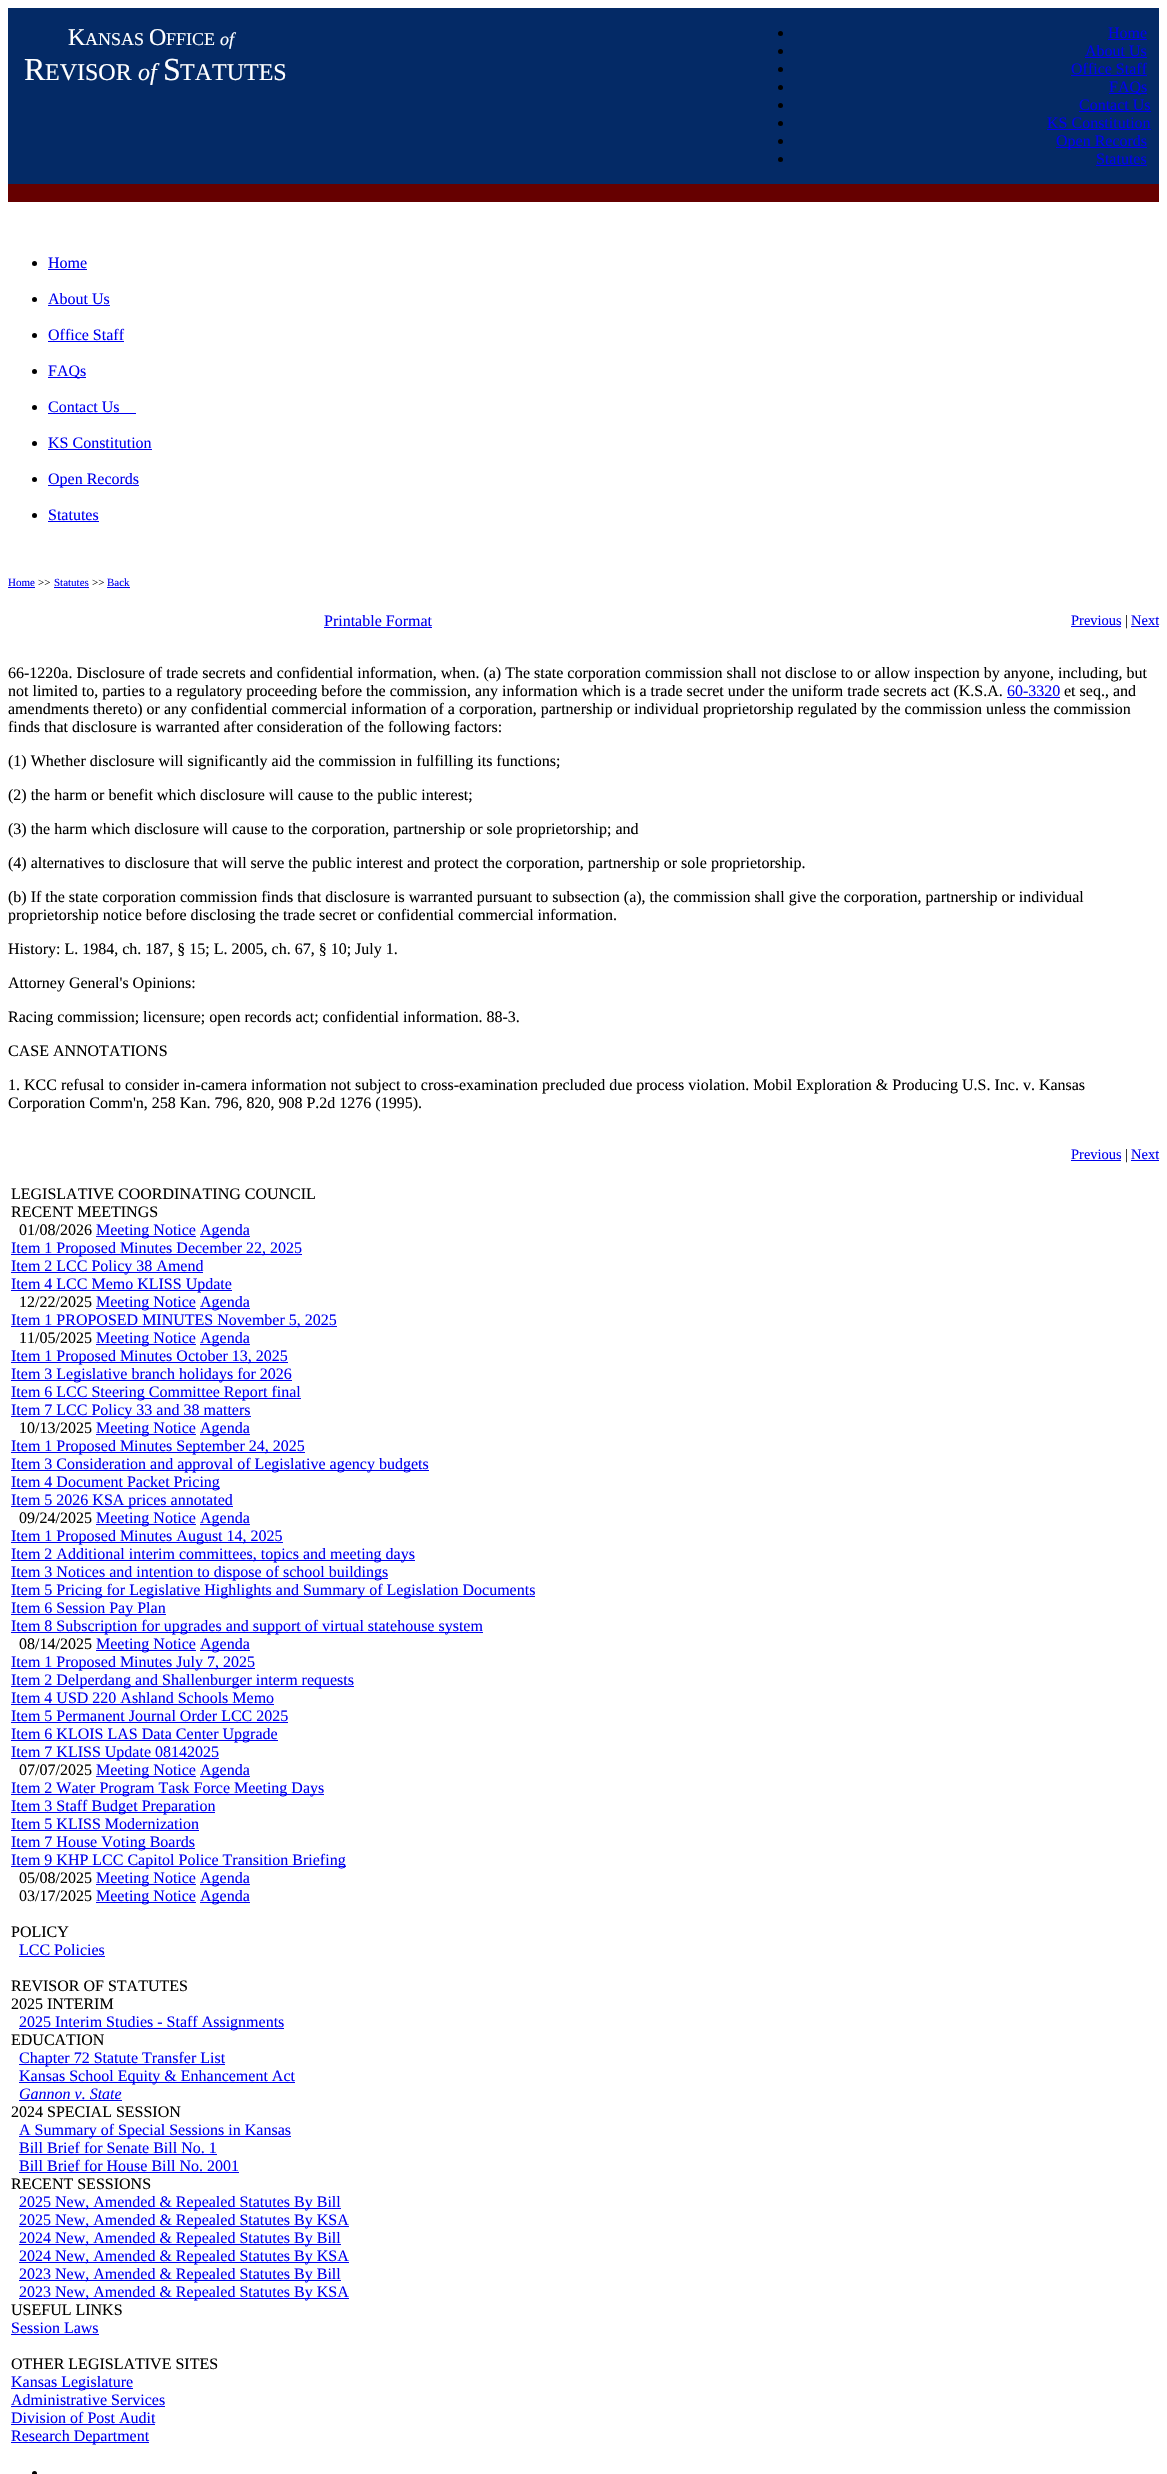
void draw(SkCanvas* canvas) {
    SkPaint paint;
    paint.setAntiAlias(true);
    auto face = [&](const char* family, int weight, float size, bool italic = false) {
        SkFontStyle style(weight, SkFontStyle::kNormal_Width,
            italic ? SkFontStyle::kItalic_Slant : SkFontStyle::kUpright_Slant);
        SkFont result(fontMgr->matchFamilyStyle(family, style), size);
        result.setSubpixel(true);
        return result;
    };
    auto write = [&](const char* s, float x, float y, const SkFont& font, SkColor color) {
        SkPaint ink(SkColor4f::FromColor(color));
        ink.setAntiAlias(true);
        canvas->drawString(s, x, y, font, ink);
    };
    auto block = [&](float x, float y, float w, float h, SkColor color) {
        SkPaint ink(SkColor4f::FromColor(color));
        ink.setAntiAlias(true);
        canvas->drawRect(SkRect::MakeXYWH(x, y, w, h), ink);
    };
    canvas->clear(SK_ColorWHITE);
    block(8, 8, 1151, 176, SkColorSetRGB(4, 42, 102));
    auto kFont1 = face("Liberation Serif", 400, 24);
    write("K", 68, 45, kFont1, SK_ColorWHITE);
    auto kFont2 = face("Liberation Serif", 400, 18);
    write("ANSAS", 85, 45, kFont2, SK_ColorWHITE);
    write("O", 149, 45, kFont1, SK_ColorWHITE);
    write("FFICE", 166, 45, kFont2, SK_ColorWHITE);
    auto kFont3 = face("Liberation Serif", 400, 18, true);
    write("of", 220, 45, kFont3, SK_ColorWHITE);
    auto kFont4 = face("Liberation Serif", 400, 32);
    write("R", 24, 80, kFont4, SK_ColorWHITE);
    write("EVISOR", 45, 80, kFont1, SK_ColorWHITE);
    auto kFont5 = face("Liberation Serif", 400, 24, true);
    write("of", 138, 80, kFont5, SK_ColorWHITE);
    write("S", 163, 80, kFont4, SK_ColorWHITE);
    write("TATUTES", 180, 80, kFont1, SK_ColorWHITE);
    paint.setColor(SK_ColorBLACK);
    canvas->drawCircle(780.5f, 33.5f, 2.5f, paint);
    auto kFont6 = face("Liberation Serif", 400, 16);
    write("Home", 1108, 38, kFont6, SkColorSetRGB(0, 0, 238));
    block(1108, 39, 39, 1, SkColorSetRGB(0, 0, 238));
    canvas->drawCircle(780.5f, 51.5f, 2.5f, paint);
    write("About Us", 1085, 56, kFont6, SkColorSetRGB(0, 0, 238));
    block(1085, 57, 62, 1, SkColorSetRGB(0, 0, 238));
    canvas->drawCircle(780.5f, 69.5f, 2.5f, paint);
    write("Office Staff", 1071, 74, kFont6, SkColorSetRGB(0, 0, 238));
    block(1071, 75, 76, 1, SkColorSetRGB(0, 0, 238));
    canvas->drawCircle(780.5f, 87.5f, 2.5f, paint);
    block(1109, 93, 38, 1, SkColorSetRGB(0, 0, 238));
    write("FAQs", 1109, 92, kFont6, SkColorSetRGB(0, 0, 238));
    canvas->drawCircle(780.5f, 105.5f, 2.5f, paint);
    write("Contact Us", 1079, 110, kFont6, SkColorSetRGB(0, 0, 238));
    block(1079, 111, 72, 1, SkColorSetRGB(0, 0, 238));
    canvas->drawCircle(780.5f, 123.5f, 2.5f, paint);
    write("KS Constitution", 1047, 128, kFont6, SkColorSetRGB(0, 0, 238));
    block(1047, 129, 104, 1, SkColorSetRGB(0, 0, 238));
    canvas->drawCircle(780.5f, 141.5f, 2.5f, paint);
    block(1056, 147, 91, 1, SkColorSetRGB(0, 0, 238));
    write("Open Records", 1056, 146, kFont6, SkColorSetRGB(0, 0, 238));
    canvas->drawCircle(780.5f, 159.5f, 2.5f, paint);
    write("Statutes", 1096, 164, kFont6, SkColorSetRGB(0, 0, 238));
    block(1096, 165, 51, 1, SkColorSetRGB(0, 0, 238));
    block(8, 184, 1151, 18, SkColorSetRGB(102, 0, 0));
    canvas->drawCircle(34.5f, 263.5f, 2.5f, paint);
    write("Home", 48, 268, kFont6, SkColorSetRGB(0, 0, 238));
    block(48, 269, 39, 1, SkColorSetRGB(0, 0, 238));
    canvas->drawCircle(34.5f, 299.5f, 2.5f, paint);
    write("About Us", 48, 304, kFont6, SkColorSetRGB(0, 0, 238));
    block(48, 305, 62, 1, SkColorSetRGB(0, 0, 238));
    canvas->drawCircle(34.5f, 335.5f, 2.5f, paint);
    write("Office Staff", 48, 340, kFont6, SkColorSetRGB(0, 0, 238));
    block(48, 341, 76, 1, SkColorSetRGB(0, 0, 238));
    canvas->drawCircle(34.5f, 371.5f, 2.5f, paint);
    block(48, 377, 38, 1, SkColorSetRGB(0, 0, 238));
    write("FAQs", 48, 376, kFont6, SkColorSetRGB(0, 0, 238));
    canvas->drawCircle(34.5f, 407.5f, 2.5f, paint);
    write("Contact Us", 48, 412, kFont6, SkColorSetRGB(0, 0, 238));
    block(48, 413, 88, 1, SkColorSetRGB(0, 0, 238));
    canvas->drawCircle(34.5f, 443.5f, 2.5f, paint);
    write("KS Constitution", 48, 448, kFont6, SkColorSetRGB(0, 0, 238));
    block(48, 449, 104, 1, SkColorSetRGB(0, 0, 238));
    canvas->drawCircle(34.5f, 479.5f, 2.5f, paint);
    block(48, 485, 91, 1, SkColorSetRGB(0, 0, 238));
    write("Open Records", 48, 484, kFont6, SkColorSetRGB(0, 0, 238));
    canvas->drawCircle(34.5f, 515.5f, 2.5f, paint);
    write("Statutes", 48, 520, kFont6, SkColorSetRGB(0, 0, 238));
    block(48, 521, 51, 1, SkColorSetRGB(0, 0, 238));
    auto kFont7 = face("Liberation Serif", 400, 11);
    write("Home", 8, 586, kFont7, SkColorSetRGB(0, 0, 238));
    block(8, 587, 27, 1, SkColorSetRGB(0, 0, 238));
    write(">>", 38, 586, kFont7, SK_ColorBLACK);
    write("Statutes", 54, 586, kFont7, SkColorSetRGB(0, 0, 238));
    block(54, 587, 35, 1, SkColorSetRGB(0, 0, 238));
    write(">>", 92, 586, kFont7, SK_ColorBLACK);
    write("Back", 107, 586, kFont7, SkColorSetRGB(0, 0, 238));
    block(107, 587, 23, 1, SkColorSetRGB(0, 0, 238));
    write("Printable Format", 324, 626, kFont6, SkColorSetRGB(0, 0, 238));
    block(324, 627, 108, 1, SkColorSetRGB(0, 0, 238));
    auto kFont8 = face("Liberation Serif", 400, 14.5f);
    write("Previous", 1071, 625, kFont8, SkColorSetRGB(0, 0, 238));
    block(1071, 626, 50, 1, SkColorSetRGB(0, 0, 238));
    write("|", 1125, 625, kFont8, SK_ColorBLACK);
    write("Next", 1131, 625, kFont8, SkColorSetRGB(0, 0, 238));
    block(1131, 626, 28, 1, SkColorSetRGB(0, 0, 238));
    write("66-1220a. Disclosure of trade secrets and confidential information, when. (a) The state corporation commission shall not disclose to or allow inspection by anyone, including, but", 8, 678, kFont6, SK_ColorBLACK);
    write("not limited to, parties to a regulatory proceeding before the commission, any information which is a trade secret under the uniform trade secrets act (K.S.A.", 8, 696, kFont6, SK_ColorBLACK);
    write("60-3320", 1007, 696, kFont6, SkColorSetRGB(0, 0, 238));
    block(1007, 697, 53, 1, SkColorSetRGB(0, 0, 238));
    write("et seq., and", 1064, 696, kFont6, SK_ColorBLACK);
    write("amendments thereto) or any confidential commercial information of a corporation, partnership or individual proprietorship regulated by the commission unless the commission", 8, 714, kFont6, SK_ColorBLACK);
    write("finds that disclosure is warranted after consideration of the following factors:", 8, 732, kFont6, SK_ColorBLACK);
    write("(1) Whether disclosure will significantly aid the commission in fulfilling its functions;", 8, 766, kFont6, SK_ColorBLACK);
    write("(2) the harm or benefit which disclosure will cause to the public interest;", 8, 800, kFont6, SK_ColorBLACK);
    write("(3) the harm which disclosure will cause to the corporation, partnership or sole proprietorship; and", 8, 834, kFont6, SK_ColorBLACK);
    write("(4) alternatives to disclosure that will serve the public interest and protect the corporation, partnership or sole proprietorship.", 8, 868, kFont6, SK_ColorBLACK);
    write("(b) If the state corporation commission finds that disclosure is warranted pursuant to subsection (a), the commission shall give the corporation, partnership or individual", 8, 902, kFont6, SK_ColorBLACK);
    write("proprietorship notice before disclosing the trade secret or confidential commercial information.", 8, 920, kFont6, SK_ColorBLACK);
    write("History: L. 1984, ch. 187, § 15; L. 2005, ch. 67, § 10; July 1.", 8, 954, kFont6, SK_ColorBLACK);
    write("Attorney General's Opinions:", 8, 988, kFont6, SK_ColorBLACK);
    write("Racing commission; licensure; open records act; confidential information. 88-3.", 8, 1022, kFont6, SK_ColorBLACK);
    write("CASE ANNOTATIONS", 8, 1056, kFont6, SK_ColorBLACK);
    write("1. KCC refusal to consider in-camera information not subject to cross-examination precluded due process violation. Mobil Exploration & Producing U.S. Inc. v. Kansas", 8, 1090, kFont6, SK_ColorBLACK);
    write("Corporation Comm'n, 258 Kan. 796, 820, 908 P.2d 1276 (1995).", 8, 1108, kFont6, SK_ColorBLACK);
    write("Previous", 1071, 1159, kFont8, SkColorSetRGB(0, 0, 238));
    block(1071, 1160, 50, 1, SkColorSetRGB(0, 0, 238));
    write("|", 1125, 1159, kFont8, SK_ColorBLACK);
    write("Next", 1131, 1159, kFont8, SkColorSetRGB(0, 0, 238));
    block(1131, 1160, 28, 1, SkColorSetRGB(0, 0, 238));
    write("LEGISLATIVE COORDINATING COUNCIL", 11, 1199, kFont6, SK_ColorBLACK);
    write("RECENT MEETINGS", 11, 1217, kFont6, SK_ColorBLACK);
    write("01/08/2026", 19, 1235, kFont6, SK_ColorBLACK);
    block(96, 1236, 100, 1, SkColorSetRGB(0, 0, 238));
    write("Meeting Notice", 96, 1235, kFont6, SkColorSetRGB(0, 0, 238));
    block(200, 1236, 50, 1, SkColorSetRGB(0, 0, 238));
    write("Agenda", 200, 1235, kFont6, SkColorSetRGB(0, 0, 238));
    block(11, 1254, 291, 1, SkColorSetRGB(0, 0, 238));
    write("Item 1 Proposed Minutes December 22, 2025", 11, 1253, kFont6, SkColorSetRGB(0, 0, 238));
    block(11, 1272, 192, 1, SkColorSetRGB(0, 0, 238));
    write("Item 2 LCC Policy 38 Amend", 11, 1271, kFont6, SkColorSetRGB(0, 0, 238));
    block(11, 1290, 221, 1, SkColorSetRGB(0, 0, 238));
    write("Item 4 LCC Memo KLISS Update", 11, 1289, kFont6, SkColorSetRGB(0, 0, 238));
    write("12/22/2025", 19, 1307, kFont6, SK_ColorBLACK);
    block(96, 1308, 100, 1, SkColorSetRGB(0, 0, 238));
    write("Meeting Notice", 96, 1307, kFont6, SkColorSetRGB(0, 0, 238));
    block(200, 1308, 50, 1, SkColorSetRGB(0, 0, 238));
    write("Agenda", 200, 1307, kFont6, SkColorSetRGB(0, 0, 238));
    block(11, 1326, 326, 1, SkColorSetRGB(0, 0, 238));
    write("Item 1 PROPOSED MINUTES November 5, 2025", 11, 1325, kFont6, SkColorSetRGB(0, 0, 238));
    write("11/05/2025", 19, 1343, kFont6, SK_ColorBLACK);
    block(96, 1344, 100, 1, SkColorSetRGB(0, 0, 238));
    write("Meeting Notice", 96, 1343, kFont6, SkColorSetRGB(0, 0, 238));
    block(200, 1344, 50, 1, SkColorSetRGB(0, 0, 238));
    write("Agenda", 200, 1343, kFont6, SkColorSetRGB(0, 0, 238));
    block(11, 1362, 277, 1, SkColorSetRGB(0, 0, 238));
    write("Item 1 Proposed Minutes October 13, 2025", 11, 1361, kFont6, SkColorSetRGB(0, 0, 238));
    block(11, 1380, 281, 1, SkColorSetRGB(0, 0, 238));
    write("Item 3 Legislative branch holidays for 2026", 11, 1379, kFont6, SkColorSetRGB(0, 0, 238));
    block(11, 1398, 290, 1, SkColorSetRGB(0, 0, 238));
    write("Item 6 LCC Steering Committee Report final", 11, 1397, kFont6, SkColorSetRGB(0, 0, 238));
    block(11, 1416, 240, 1, SkColorSetRGB(0, 0, 238));
    write("Item 7 LCC Policy 33 and 38 matters", 11, 1415, kFont6, SkColorSetRGB(0, 0, 238));
    write("10/13/2025", 19, 1433, kFont6, SK_ColorBLACK);
    block(96, 1434, 100, 1, SkColorSetRGB(0, 0, 238));
    write("Meeting Notice", 96, 1433, kFont6, SkColorSetRGB(0, 0, 238));
    block(200, 1434, 50, 1, SkColorSetRGB(0, 0, 238));
    write("Agenda", 200, 1433, kFont6, SkColorSetRGB(0, 0, 238));
    block(11, 1452, 294, 1, SkColorSetRGB(0, 0, 238));
    write("Item 1 Proposed Minutes September 24, 2025", 11, 1451, kFont6, SkColorSetRGB(0, 0, 238));
    block(11, 1470, 418, 1, SkColorSetRGB(0, 0, 238));
    write("Item 3 Consideration and approval of Legislative agency budgets", 11, 1469, kFont6, SkColorSetRGB(0, 0, 238));
    block(11, 1488, 209, 1, SkColorSetRGB(0, 0, 238));
    write("Item 4 Document Packet Pricing", 11, 1487, kFont6, SkColorSetRGB(0, 0, 238));
    block(11, 1506, 222, 1, SkColorSetRGB(0, 0, 238));
    write("Item 5 2026 KSA prices annotated", 11, 1505, kFont6, SkColorSetRGB(0, 0, 238));
    write("09/24/2025", 19, 1523, kFont6, SK_ColorBLACK);
    block(96, 1524, 100, 1, SkColorSetRGB(0, 0, 238));
    write("Meeting Notice", 96, 1523, kFont6, SkColorSetRGB(0, 0, 238));
    block(200, 1524, 50, 1, SkColorSetRGB(0, 0, 238));
    write("Agenda", 200, 1523, kFont6, SkColorSetRGB(0, 0, 238));
    block(11, 1542, 272, 1, SkColorSetRGB(0, 0, 238));
    write("Item 1 Proposed Minutes August 14, 2025", 11, 1541, kFont6, SkColorSetRGB(0, 0, 238));
    block(11, 1560, 404, 1, SkColorSetRGB(0, 0, 238));
    write("Item 2 Additional interim committees, topics and meeting days", 11, 1559, kFont6, SkColorSetRGB(0, 0, 238));
    block(11, 1578, 377, 1, SkColorSetRGB(0, 0, 238));
    write("Item 3 Notices and intention to dispose of school buildings", 11, 1577, kFont6, SkColorSetRGB(0, 0, 238));
    block(11, 1596, 524, 1, SkColorSetRGB(0, 0, 238));
    write("Item 5 Pricing for Legislative Highlights and Summary of Legislation Documents", 11, 1595, kFont6, SkColorSetRGB(0, 0, 238));
    block(11, 1614, 155, 1, SkColorSetRGB(0, 0, 238));
    write("Item 6 Session Pay Plan", 11, 1613, kFont6, SkColorSetRGB(0, 0, 238));
    block(11, 1632, 472, 1, SkColorSetRGB(0, 0, 238));
    write("Item 8 Subscription for upgrades and support of virtual statehouse system", 11, 1631, kFont6, SkColorSetRGB(0, 0, 238));
    write("08/14/2025", 19, 1649, kFont6, SK_ColorBLACK);
    block(96, 1650, 100, 1, SkColorSetRGB(0, 0, 238));
    write("Meeting Notice", 96, 1649, kFont6, SkColorSetRGB(0, 0, 238));
    block(200, 1650, 50, 1, SkColorSetRGB(0, 0, 238));
    write("Agenda", 200, 1649, kFont6, SkColorSetRGB(0, 0, 238));
    block(11, 1668, 244, 1, SkColorSetRGB(0, 0, 238));
    write("Item 1 Proposed Minutes July 7, 2025", 11, 1667, kFont6, SkColorSetRGB(0, 0, 238));
    block(11, 1686, 343, 1, SkColorSetRGB(0, 0, 238));
    write("Item 2 Delperdang and Shallenburger interm requests", 11, 1685, kFont6, SkColorSetRGB(0, 0, 238));
    write("Item 4 USD 220 Ashland Schools Memo", 11, 1703, kFont6, SkColorSetRGB(0, 0, 238));
    block(11, 1704, 263, 1, SkColorSetRGB(0, 0, 238));
    write("Item 5 Permanent Journal Order LCC 2025", 11, 1721, kFont6, SkColorSetRGB(0, 0, 238));
    block(11, 1722, 277, 1, SkColorSetRGB(0, 0, 238));
    block(11, 1740, 267, 1, SkColorSetRGB(0, 0, 238));
    write("Item 6 KLOIS LAS Data Center Upgrade", 11, 1739, kFont6, SkColorSetRGB(0, 0, 238));
    block(11, 1758, 208, 1, SkColorSetRGB(0, 0, 238));
    write("Item 7 KLISS Update 08142025", 11, 1757, kFont6, SkColorSetRGB(0, 0, 238));
    write("07/07/2025", 19, 1775, kFont6, SK_ColorBLACK);
    block(96, 1776, 100, 1, SkColorSetRGB(0, 0, 238));
    write("Meeting Notice", 96, 1775, kFont6, SkColorSetRGB(0, 0, 238));
    block(200, 1776, 50, 1, SkColorSetRGB(0, 0, 238));
    write("Agenda", 200, 1775, kFont6, SkColorSetRGB(0, 0, 238));
    block(11, 1794, 313, 1, SkColorSetRGB(0, 0, 238));
    write("Item 2 Water Program Task Force Meeting Days", 11, 1793, kFont6, SkColorSetRGB(0, 0, 238));
    block(11, 1812, 204, 1, SkColorSetRGB(0, 0, 238));
    write("Item 3 Staff Budget Preparation", 11, 1811, kFont6, SkColorSetRGB(0, 0, 238));
    write("Item 5 KLISS Modernization", 11, 1829, kFont6, SkColorSetRGB(0, 0, 238));
    block(11, 1830, 188, 1, SkColorSetRGB(0, 0, 238));
    block(11, 1848, 184, 1, SkColorSetRGB(0, 0, 238));
    write("Item 7 House Voting Boards", 11, 1847, kFont6, SkColorSetRGB(0, 0, 238));
    block(11, 1866, 335, 1, SkColorSetRGB(0, 0, 238));
    write("Item 9 KHP LCC Capitol Police Transition Briefing", 11, 1865, kFont6, SkColorSetRGB(0, 0, 238));
    write("05/08/2025", 19, 1883, kFont6, SK_ColorBLACK);
    block(96, 1884, 100, 1, SkColorSetRGB(0, 0, 238));
    write("Meeting Notice", 96, 1883, kFont6, SkColorSetRGB(0, 0, 238));
    block(200, 1884, 50, 1, SkColorSetRGB(0, 0, 238));
    write("Agenda", 200, 1883, kFont6, SkColorSetRGB(0, 0, 238));
    write("03/17/2025", 19, 1901, kFont6, SK_ColorBLACK);
    block(96, 1902, 100, 1, SkColorSetRGB(0, 0, 238));
    write("Meeting Notice", 96, 1901, kFont6, SkColorSetRGB(0, 0, 238));
    block(200, 1902, 50, 1, SkColorSetRGB(0, 0, 238));
    write("Agenda", 200, 1901, kFont6, SkColorSetRGB(0, 0, 238));
    write("POLICY", 11, 1937, kFont6, SK_ColorBLACK);
    write("LCC Policies", 19, 1955, kFont6, SkColorSetRGB(0, 0, 238));
    block(19, 1956, 86, 1, SkColorSetRGB(0, 0, 238));
    write("REVISOR OF STATUTES", 11, 1991, kFont6, SK_ColorBLACK);
    write("2025 INTERIM", 11, 2009, kFont6, SK_ColorBLACK);
    block(19, 2028, 265, 1, SkColorSetRGB(0, 0, 238));
    write("2025 Interim Studies - Staff Assignments", 19, 2027, kFont6, SkColorSetRGB(0, 0, 238));
    write("EDUCATION", 11, 2045, kFont6, SK_ColorBLACK);
    block(19, 2064, 206, 1, SkColorSetRGB(0, 0, 238));
    write("Chapter 72 Statute Transfer List", 19, 2063, kFont6, SkColorSetRGB(0, 0, 238));
    block(19, 2082, 276, 1, SkColorSetRGB(0, 0, 238));
    write("Kansas School Equity & Enhancement Act", 19, 2081, kFont6, SkColorSetRGB(0, 0, 238));
    auto kFont9 = face("Liberation Serif", 400, 16, true);
    write("Gannon v. State", 19, 2099, kFont9, SkColorSetRGB(0, 0, 238));
    block(19, 2100, 103, 1, SkColorSetRGB(0, 0, 238));
    write("2024 SPECIAL SESSION", 11, 2117, kFont6, SK_ColorBLACK);
    block(19, 2136, 272, 1, SkColorSetRGB(0, 0, 238));
    write("A Summary of Special Sessions in Kansas", 19, 2135, kFont6, SkColorSetRGB(0, 0, 238));
    write("Bill Brief for Senate Bill No. 1", 19, 2153, kFont6, SkColorSetRGB(0, 0, 238));
    block(19, 2154, 198, 1, SkColorSetRGB(0, 0, 238));
    write("Bill Brief for House Bill No. 2001", 19, 2171, kFont6, SkColorSetRGB(0, 0, 238));
    block(19, 2172, 220, 1, SkColorSetRGB(0, 0, 238));
    write("RECENT SESSIONS", 11, 2189, kFont6, SK_ColorBLACK);
    block(19, 2208, 322, 1, SkColorSetRGB(0, 0, 238));
    write("2025 New, Amended & Repealed Statutes By Bill", 19, 2207, kFont6, SkColorSetRGB(0, 0, 238));
    block(19, 2226, 330, 1, SkColorSetRGB(0, 0, 238));
    write("2025 New, Amended & Repealed Statutes By KSA", 19, 2225, kFont6, SkColorSetRGB(0, 0, 238));
    block(19, 2244, 322, 1, SkColorSetRGB(0, 0, 238));
    write("2024 New, Amended & Repealed Statutes By Bill", 19, 2243, kFont6, SkColorSetRGB(0, 0, 238));
    block(19, 2262, 330, 1, SkColorSetRGB(0, 0, 238));
    write("2024 New, Amended & Repealed Statutes By KSA", 19, 2261, kFont6, SkColorSetRGB(0, 0, 238));
    block(19, 2280, 322, 1, SkColorSetRGB(0, 0, 238));
    write("2023 New, Amended & Repealed Statutes By Bill", 19, 2279, kFont6, SkColorSetRGB(0, 0, 238));
    block(19, 2298, 330, 1, SkColorSetRGB(0, 0, 238));
    write("2023 New, Amended & Repealed Statutes By KSA", 19, 2297, kFont6, SkColorSetRGB(0, 0, 238));
    write("USEFUL LINKS", 11, 2315, kFont6, SK_ColorBLACK);
    write("Session Laws", 11, 2333, kFont6, SkColorSetRGB(0, 0, 238));
    block(11, 2334, 88, 1, SkColorSetRGB(0, 0, 238));
    write("OTHER LEGISLATIVE SITES", 11, 2369, kFont6, SK_ColorBLACK);
    block(11, 2388, 122, 1, SkColorSetRGB(0, 0, 238));
    write("Kansas Legislature", 11, 2387, kFont6, SkColorSetRGB(0, 0, 238));
    write("Administrative Services", 11, 2405, kFont6, SkColorSetRGB(0, 0, 238));
    block(11, 2406, 154, 1, SkColorSetRGB(0, 0, 238));
    write("Division of Post Audit", 11, 2423, kFont6, SkColorSetRGB(0, 0, 238));
    block(11, 2424, 144, 1, SkColorSetRGB(0, 0, 238));
    block(11, 2442, 138, 1, SkColorSetRGB(0, 0, 238));
    write("Research Department", 11, 2441, kFont6, SkColorSetRGB(0, 0, 238));
    canvas->drawCircle(34.5f, 2473.5f, 2.5f, paint);
}
